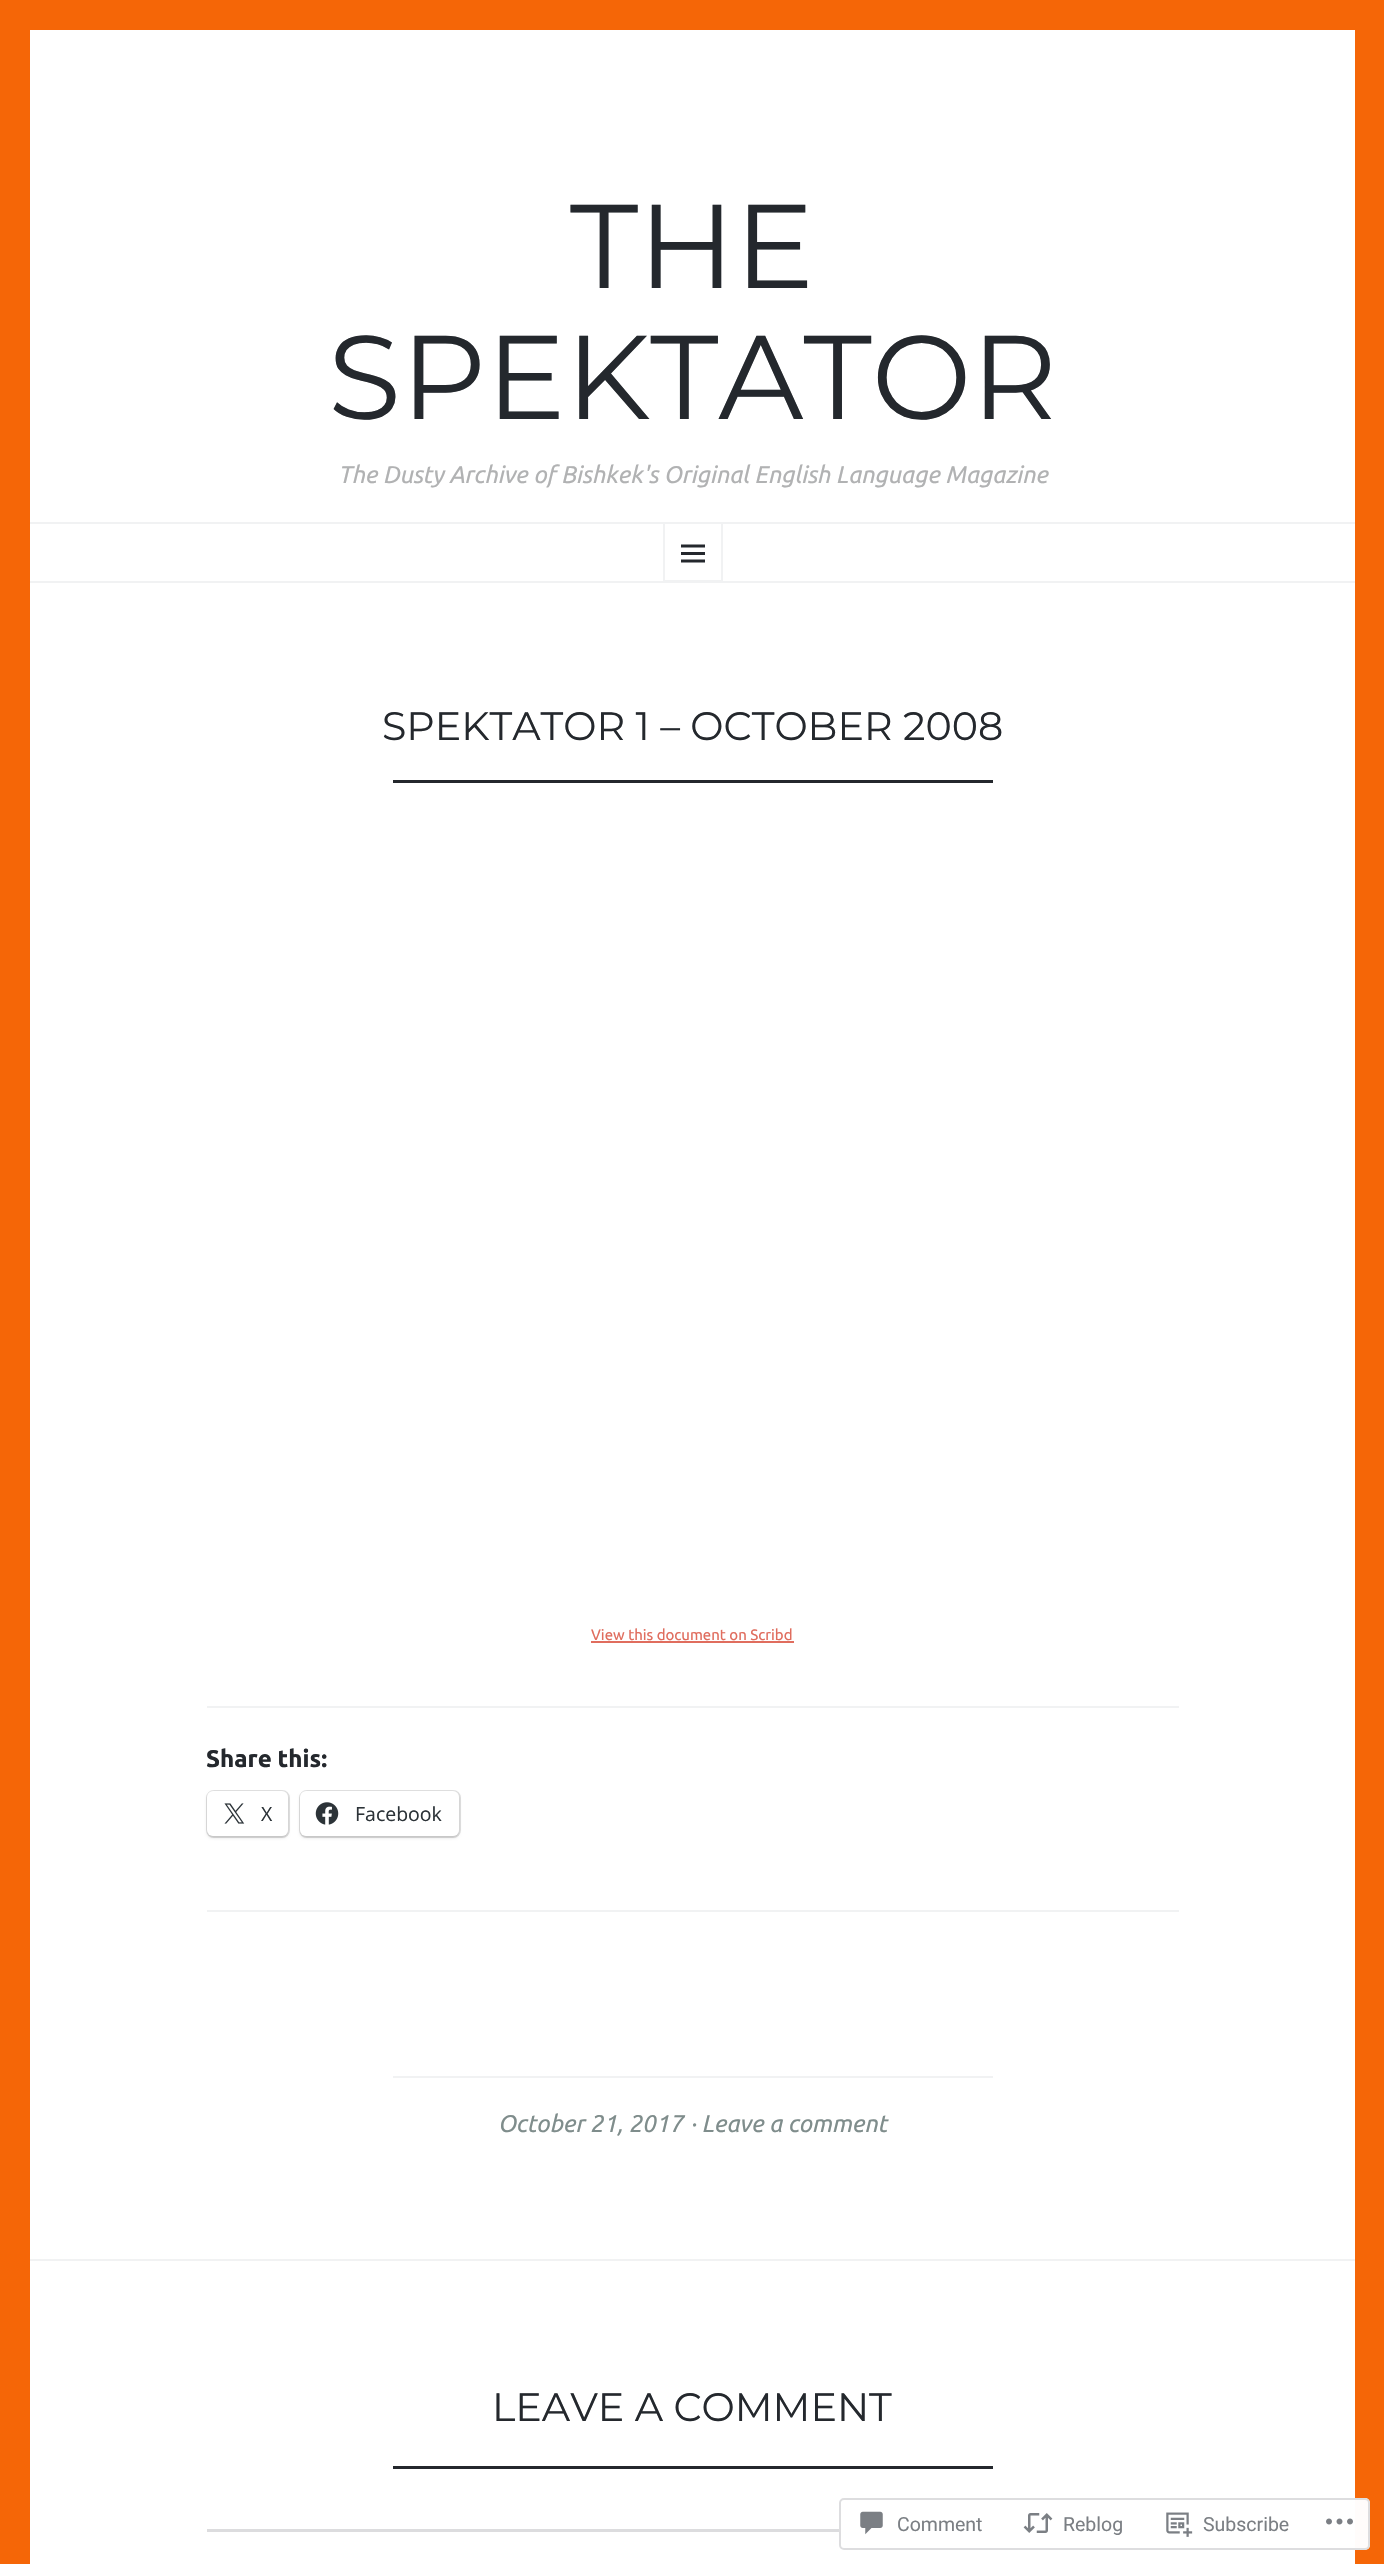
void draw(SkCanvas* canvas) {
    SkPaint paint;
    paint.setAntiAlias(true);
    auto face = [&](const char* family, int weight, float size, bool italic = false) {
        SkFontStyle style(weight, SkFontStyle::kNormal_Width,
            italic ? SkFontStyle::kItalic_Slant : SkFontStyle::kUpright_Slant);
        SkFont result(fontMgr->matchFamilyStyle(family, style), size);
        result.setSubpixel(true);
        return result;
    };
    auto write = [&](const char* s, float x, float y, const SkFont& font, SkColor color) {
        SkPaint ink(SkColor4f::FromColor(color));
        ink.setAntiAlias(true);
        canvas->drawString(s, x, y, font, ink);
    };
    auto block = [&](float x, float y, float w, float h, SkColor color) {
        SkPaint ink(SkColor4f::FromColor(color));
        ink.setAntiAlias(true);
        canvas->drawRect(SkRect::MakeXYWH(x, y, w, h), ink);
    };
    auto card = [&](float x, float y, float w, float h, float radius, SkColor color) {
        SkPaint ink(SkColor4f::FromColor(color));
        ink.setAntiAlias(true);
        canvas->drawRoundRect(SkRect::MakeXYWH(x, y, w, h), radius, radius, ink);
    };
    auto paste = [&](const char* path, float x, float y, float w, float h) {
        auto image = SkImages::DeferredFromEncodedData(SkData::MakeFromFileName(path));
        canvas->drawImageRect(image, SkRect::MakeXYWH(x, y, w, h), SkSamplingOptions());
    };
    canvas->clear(SkColorSetRGB(245, 102, 7));
    block(30, 30, 1325, 2534, SK_ColorWHITE);
    auto kFont1 = face("Montserrat", 100, 118.75f);
    write("THE", 570, 288, kFont1, SkColorSetRGB(36, 40, 45));
    write("SPEKTATOR", 328, 419, kFont1, SkColorSetRGB(36, 40, 45));
    auto kFont2 = face("Ubuntu", 400, 24.1f, true);
    write("The Dusty Archive of Bishkek's Original English Language Magazine", 338, 483, kFont2, SkColorSetRGB(177, 178, 179));
    block(30, 522, 1325, 2, SkColorSetRGB(241, 242, 243));
    block(30, 581, 1325, 2, SkColorSetRGB(241, 242, 243));
    paint.setStyle(SkPaint::kStroke_Style);
    paint.setStrokeWidth(2);
    paint.setColor(SkColorSetRGB(241, 242, 243));
    canvas->drawRect(SkRect::MakeXYWH(664, 523, 58, 58), paint);
    paste("pic1.png", 681, 544, 24, 19);
    auto kFont3 = face("Montserrat", 100, 39.6f);
    write("SPEKTATOR 1 – OCTOBER 2008", 382, 740, kFont3, SkColorSetRGB(36, 40, 45));
    block(393, 780, 600, 3, SkColorSetRGB(36, 40, 45));
    auto kFont4 = face("Ubuntu", 400, 15);
    write("View this document on Scribd", 591, 1640, kFont4, SkColorSetRGB(224, 109, 94));
    block(591, 1641, 203, 2, SkColorSetRGB(224, 109, 94));
    block(207, 1706, 972, 2, SkColorSetRGB(241, 242, 243));
    auto kFont5 = face("Ubuntu", 700, 24.1f);
    write("Share this:", 206, 1767, kFont5, SkColorSetRGB(36, 40, 45));
    paint.setColor(SkColorSetRGB(224, 224, 224));
    canvas->drawRoundRect(SkRect::MakeXYWH(207, 1791, 82, 46), 7, 7, paint);
    paint.setStyle(SkPaint::kFill_Style);
    paint.setColor(SkColorSetARGB(31, 0, 0, 0));
    paint.setMaskFilter(SkMaskFilter::MakeBlur(kNormal_SkBlurStyle, 1.5f));
    canvas->drawRoundRect(SkRect::MakeXYWH(207, 1793, 81, 45), 6, 6, paint);
    paint.setMaskFilter(nullptr);
    card(207, 1791, 81, 45, 6, SK_ColorWHITE);
    paste("pic2.png", 224, 1803, 21, 21);
    auto kFont6 = face("Open Sans", 400, 19.5f);
    write("X", 261, 1821, kFont6, SkColorSetRGB(44, 51, 56));
    paint.setStyle(SkPaint::kStroke_Style);
    paint.setColor(SkColorSetRGB(224, 224, 224));
    canvas->drawRoundRect(SkRect::MakeXYWH(300, 1791, 160, 46), 7, 7, paint);
    paint.setStyle(SkPaint::kFill_Style);
    paint.setColor(SkColorSetARGB(31, 0, 0, 0));
    paint.setMaskFilter(SkMaskFilter::MakeBlur(kNormal_SkBlurStyle, 1.5f));
    canvas->drawRoundRect(SkRect::MakeXYWH(300, 1793, 159, 45), 6, 6, paint);
    paint.setMaskFilter(nullptr);
    card(300, 1791, 159, 45, 6, SK_ColorWHITE);
    paste("pic3.png", 315, 1802, 24, 23);
    write("Facebook", 355, 1821, kFont6, SkColorSetRGB(44, 51, 56));
    block(207, 1910, 972, 2, SkColorSetRGB(241, 242, 243));
    block(393, 2076, 600, 2, SkColorSetRGB(241, 242, 243));
    write("October 21, 2017", 498, 2132, kFont2, SkColorSetRGB(127, 141, 140));
    write("· Leave a comment", 690, 2132, kFont2, SkColorSetRGB(127, 141, 140));
    block(30, 2259, 1325, 2, SkColorSetRGB(241, 242, 243));
    write("LEAVE A COMMENT", 492, 2421, kFont3, SkColorSetRGB(36, 40, 45));
    block(393, 2466, 600, 3, SkColorSetRGB(36, 40, 45));
    block(207, 2529, 972, 3, SkColorSetRGB(220, 220, 222));
    card(839, 2498, 531, 52, 5, SkColorSetARGB(250, 255, 255, 255));
    paint.setStyle(SkPaint::kStroke_Style);
    paint.setColor(SkColorSetARGB(250, 220, 220, 222));
    canvas->drawRoundRect(SkRect::MakeXYWH(840, 2499, 529, 50), 4, 4, paint);
    paste("pic4.png", 860, 2511, 23, 24);
    auto kFont7 = face("Roboto", 400, 19.5f);
    write("Comment", 897, 2531, kFont7, SkColorSetRGB(123, 127, 132));
    paste("pic5.png", 1023, 2513, 30, 20);
    write("Reblog", 1063, 2531, kFont7, SkColorSetRGB(123, 127, 132));
    paste("pic6.png", 1166, 2512, 27, 25);
    write("Subscribe", 1203, 2531, kFont7, SkColorSetRGB(123, 127, 132));
    paste("pic7.png", 1326, 2518, 27, 7);
}
